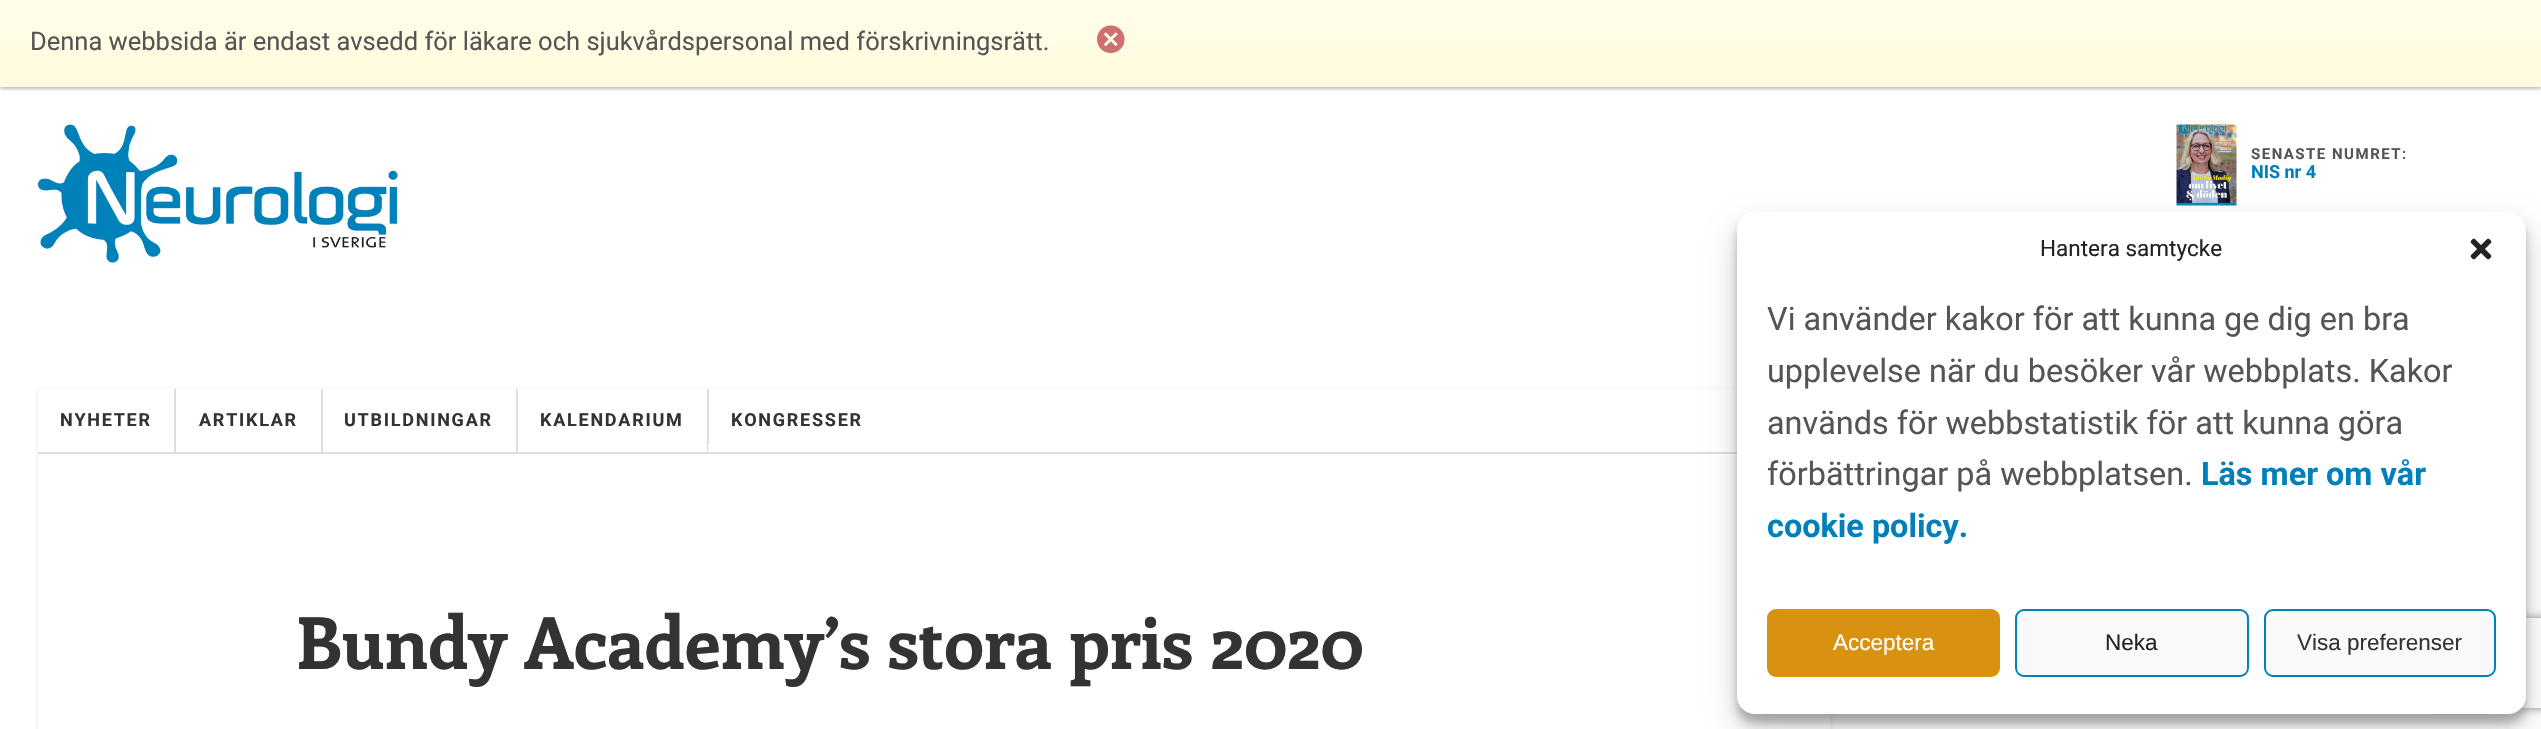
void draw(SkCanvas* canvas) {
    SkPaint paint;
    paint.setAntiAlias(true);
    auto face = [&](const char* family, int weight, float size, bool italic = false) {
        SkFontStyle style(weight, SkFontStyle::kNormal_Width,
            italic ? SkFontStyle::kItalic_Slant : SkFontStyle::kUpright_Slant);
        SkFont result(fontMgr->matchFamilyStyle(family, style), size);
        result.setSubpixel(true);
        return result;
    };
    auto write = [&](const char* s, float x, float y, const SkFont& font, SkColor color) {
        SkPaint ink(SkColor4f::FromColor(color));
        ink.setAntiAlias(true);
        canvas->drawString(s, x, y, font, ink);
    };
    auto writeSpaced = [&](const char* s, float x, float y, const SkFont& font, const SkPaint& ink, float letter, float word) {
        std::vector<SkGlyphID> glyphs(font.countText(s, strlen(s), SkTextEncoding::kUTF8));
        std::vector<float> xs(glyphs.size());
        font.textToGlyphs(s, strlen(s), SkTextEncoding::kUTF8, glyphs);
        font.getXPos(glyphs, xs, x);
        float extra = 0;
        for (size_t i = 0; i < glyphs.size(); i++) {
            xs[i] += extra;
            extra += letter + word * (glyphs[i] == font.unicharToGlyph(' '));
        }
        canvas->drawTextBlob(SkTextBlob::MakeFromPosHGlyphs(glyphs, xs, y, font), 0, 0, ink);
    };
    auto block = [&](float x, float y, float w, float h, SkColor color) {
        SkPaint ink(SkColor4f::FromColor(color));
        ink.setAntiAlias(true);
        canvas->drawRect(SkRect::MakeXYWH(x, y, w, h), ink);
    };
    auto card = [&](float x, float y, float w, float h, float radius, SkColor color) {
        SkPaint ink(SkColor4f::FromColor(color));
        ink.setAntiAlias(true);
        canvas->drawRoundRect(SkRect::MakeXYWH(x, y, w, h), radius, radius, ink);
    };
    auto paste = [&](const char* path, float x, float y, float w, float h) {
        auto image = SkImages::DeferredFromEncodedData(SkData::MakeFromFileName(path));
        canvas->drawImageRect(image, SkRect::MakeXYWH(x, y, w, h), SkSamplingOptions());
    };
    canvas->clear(SK_ColorWHITE);
    paint.setColor(SkColorSetARGB(64, 0, 0, 0));
    paint.setMaskFilter(SkMaskFilter::MakeBlur(kNormal_SkBlurStyle, 1.5f));
    canvas->drawRect(SkRect::MakeXYWH(0, 2, 2541, 87), paint);
    paint.setMaskFilter(nullptr);
    {
        const SkColor colors[] = {SkColorSetRGB(255, 254, 235), SkColorSetRGB(255, 251, 220)};
        const float stops[] = {0, 1};
        const SkPoint ends[] = {{1271, 0}, {1271, 87}};
        paint.setShader(SkGradientShader::MakeLinear(ends, colors, stops, 2, SkTileMode::kClamp));
        paint.setAlpha(255);
    }
    canvas->drawRect(SkRect::MakeXYWH(0, 0, 2541, 87), paint);
    auto kFont1 = face("Roboto", 400, 25.5f);
    write("Denna webbsida är endast avsedd för läkare och sjukvårdspersonal med förskrivningsrätt.", 30, 50, kFont1, SkColorSetRGB(85, 85, 85));
    paste("pic1.png", 1097, 25, 28, 28);
    paste("pic2.png", 38, 124, 360, 139);
    paste("pic3.png", 2176, 124, 61, 82);
    auto kFont2 = face("Roboto", 700, 15);
    paint.setShader(nullptr);
    paint.setColor(SkColorSetRGB(85, 85, 85));
    writeSpaced("SENASTE NUMRET:", 2251, 159, kFont2, paint, 1.5f, 0);
    auto kFont3 = face("Roboto", 700, 18);
    write("NIS nr 4", 2251, 178, kFont3, SkColorSetRGB(0, 128, 187));
    canvas->save();
    canvas->clipPath(SkPathBuilder(SkPathFillType::kEvenOdd).moveTo(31, 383).lineTo(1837, 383).lineTo(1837, 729).lineTo(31, 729).close().moveTo(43, 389).lineTo(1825, 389).cubicTo(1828, 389, 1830, 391, 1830, 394).lineTo(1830, 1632).cubicTo(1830, 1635, 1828, 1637, 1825, 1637).lineTo(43, 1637).cubicTo(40, 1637, 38, 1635, 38, 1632).lineTo(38, 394).cubicTo(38, 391, 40, 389, 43, 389).close().detach(), true);
    paint.setColor(SkColorSetARGB(26, 0, 0, 0));
    paint.setMaskFilter(SkMaskFilter::MakeBlur(kNormal_SkBlurStyle, 2));
    canvas->drawRoundRect(SkRect::MakeXYWH(38, 390, 1792, 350), 5, 5, paint);
    paint.setMaskFilter(nullptr);
    canvas->restore();
    block(38, 452, 1699, 2, SkColorSetRGB(221, 221, 221));
    paint.setColor(SkColorSetRGB(51, 51, 51));
    writeSpaced("NYHETER", 60, 426, kFont3, paint, 1.75f, 0);
    block(174, 389, 2, 63, SkColorSetRGB(221, 221, 221));
    writeSpaced("ARTIKLAR", 199, 426, kFont3, paint, 1.75f, 0);
    block(321, 389, 2, 63, SkColorSetRGB(221, 221, 221));
    writeSpaced("UTBILDNINGAR", 344, 426, kFont3, paint, 1.75f, 0);
    block(516, 389, 2, 63, SkColorSetRGB(221, 221, 221));
    writeSpaced("KALENDARIUM", 540, 426, kFont3, paint, 1.75f, 0);
    block(707, 389, 2, 63, SkColorSetRGB(221, 221, 221));
    block(708, 444, 1, 8, SK_ColorWHITE);
    writeSpaced("KONGRESSER", 731, 426, kFont3, paint, 1.75f, 0);
    auto kFont4 = face("Enriqueta", 700, 72);
    write("Bundy Academy’s stora pris 2020", 296, 669, kFont4, SkColorSetRGB(51, 51, 51));
    paint.setColor(SkColorSetARGB(59, 0, 0, 0));
    paint.setMaskFilter(SkMaskFilter::MakeBlur(kNormal_SkBlurStyle, 4.5f));
    canvas->drawRoundRect(SkRect::MakeXYWH(1737, 221, 789, 502), 18, 18, paint);
    paint.setMaskFilter(nullptr);
    paint.setColor(SkColorSetARGB(48, 0, 0, 0));
    paint.setMaskFilter(SkMaskFilter::MakeBlur(kNormal_SkBlurStyle, 15));
    canvas->drawRoundRect(SkRect::MakeXYWH(1737, 227, 789, 502), 18, 18, paint);
    paint.setMaskFilter(nullptr);
    canvas->save();
    canvas->clipPath(SkPathBuilder(SkPathFillType::kEvenOdd).moveTo(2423, 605).lineTo(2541, 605).lineTo(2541, 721).lineTo(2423, 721).close().moveTo(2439, 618).lineTo(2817, 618).cubicTo(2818.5f, 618, 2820, 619.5f, 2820, 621).lineTo(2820, 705).cubicTo(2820, 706.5f, 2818.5f, 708, 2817, 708).lineTo(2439, 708).cubicTo(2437.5f, 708, 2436, 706.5f, 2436, 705).lineTo(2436, 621).cubicTo(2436, 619.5f, 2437.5f, 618, 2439, 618).close().detach(), true);
    paint.setColor(SkColorSetRGB(128, 128, 128));
    paint.setMaskFilter(SkMaskFilter::MakeBlur(kNormal_SkBlurStyle, 4));
    canvas->drawRoundRect(SkRect::MakeXYWH(2436, 618, 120, 90), 3, 3, paint);
    paint.setMaskFilter(nullptr);
    canvas->restore();
    card(1737, 212, 789, 502, 18, SK_ColorWHITE);
    auto kFont5 = face("Roboto", 400, 22.5f);
    write("Hantera samtycke", 2040, 256, kFont5, SkColorSetRGB(34, 34, 34));
    paste("pic4.png", 2470, 238, 22, 22);
    auto kFont6 = face("Roboto", 400, 32.4f);
    write("Vi använder kakor för att kunna ge dig en bra", 1767, 330, kFont6, SkColorSetRGB(85, 85, 85));
    write("upplevelse när du besöker vår webbplats. Kakor", 1767, 382, kFont6, SkColorSetRGB(85, 85, 85));
    write("används för webbstatistik för att kunna göra", 1767, 434, kFont6, SkColorSetRGB(85, 85, 85));
    write("förbättringar på webbplatsen.", 1767, 485, kFont6, SkColorSetRGB(85, 85, 85));
    auto kFont7 = face("Roboto", 700, 32.4f);
    write("Läs mer om vår", 2201, 485, kFont7, SkColorSetRGB(0, 128, 187));
    write("cookie policy.", 1767, 537, kFont7, SkColorSetRGB(0, 128, 187));
    paint.setColor(SkColorSetRGB(217, 145, 16));
    canvas->drawRoundRect(SkRect::MakeXYWH(1768, 610, 231, 66), 8, 8, paint);
    paint.setStyle(SkPaint::kStroke_Style);
    paint.setStrokeWidth(2);
    canvas->drawRoundRect(SkRect::MakeXYWH(1768, 610, 231, 66), 8, 8, paint);
    auto kFont8 = face("Liberation Sans", 400, 22.5f);
    write("Acceptera", 1833, 650, kFont8, SK_ColorWHITE);
    paint.setStyle(SkPaint::kFill_Style);
    paint.setColor(SkColorSetRGB(249, 249, 249));
    canvas->drawRoundRect(SkRect::MakeXYWH(2016, 610, 232, 66), 8, 8, paint);
    paint.setStyle(SkPaint::kStroke_Style);
    paint.setColor(SkColorSetRGB(0, 129, 185));
    canvas->drawRoundRect(SkRect::MakeXYWH(2016, 610, 232, 66), 8, 8, paint);
    write("Neka", 2105, 650, kFont8, SkColorSetRGB(34, 34, 34));
    paint.setStyle(SkPaint::kFill_Style);
    paint.setColor(SkColorSetRGB(249, 249, 249));
    canvas->drawRoundRect(SkRect::MakeXYWH(2265, 610, 230, 66), 8, 8, paint);
    paint.setStyle(SkPaint::kStroke_Style);
    paint.setColor(SkColorSetRGB(0, 129, 185));
    canvas->drawRoundRect(SkRect::MakeXYWH(2265, 610, 230, 66), 8, 8, paint);
    write("Visa preferenser", 2297, 650, kFont8, SkColorSetRGB(51, 51, 51));
}
